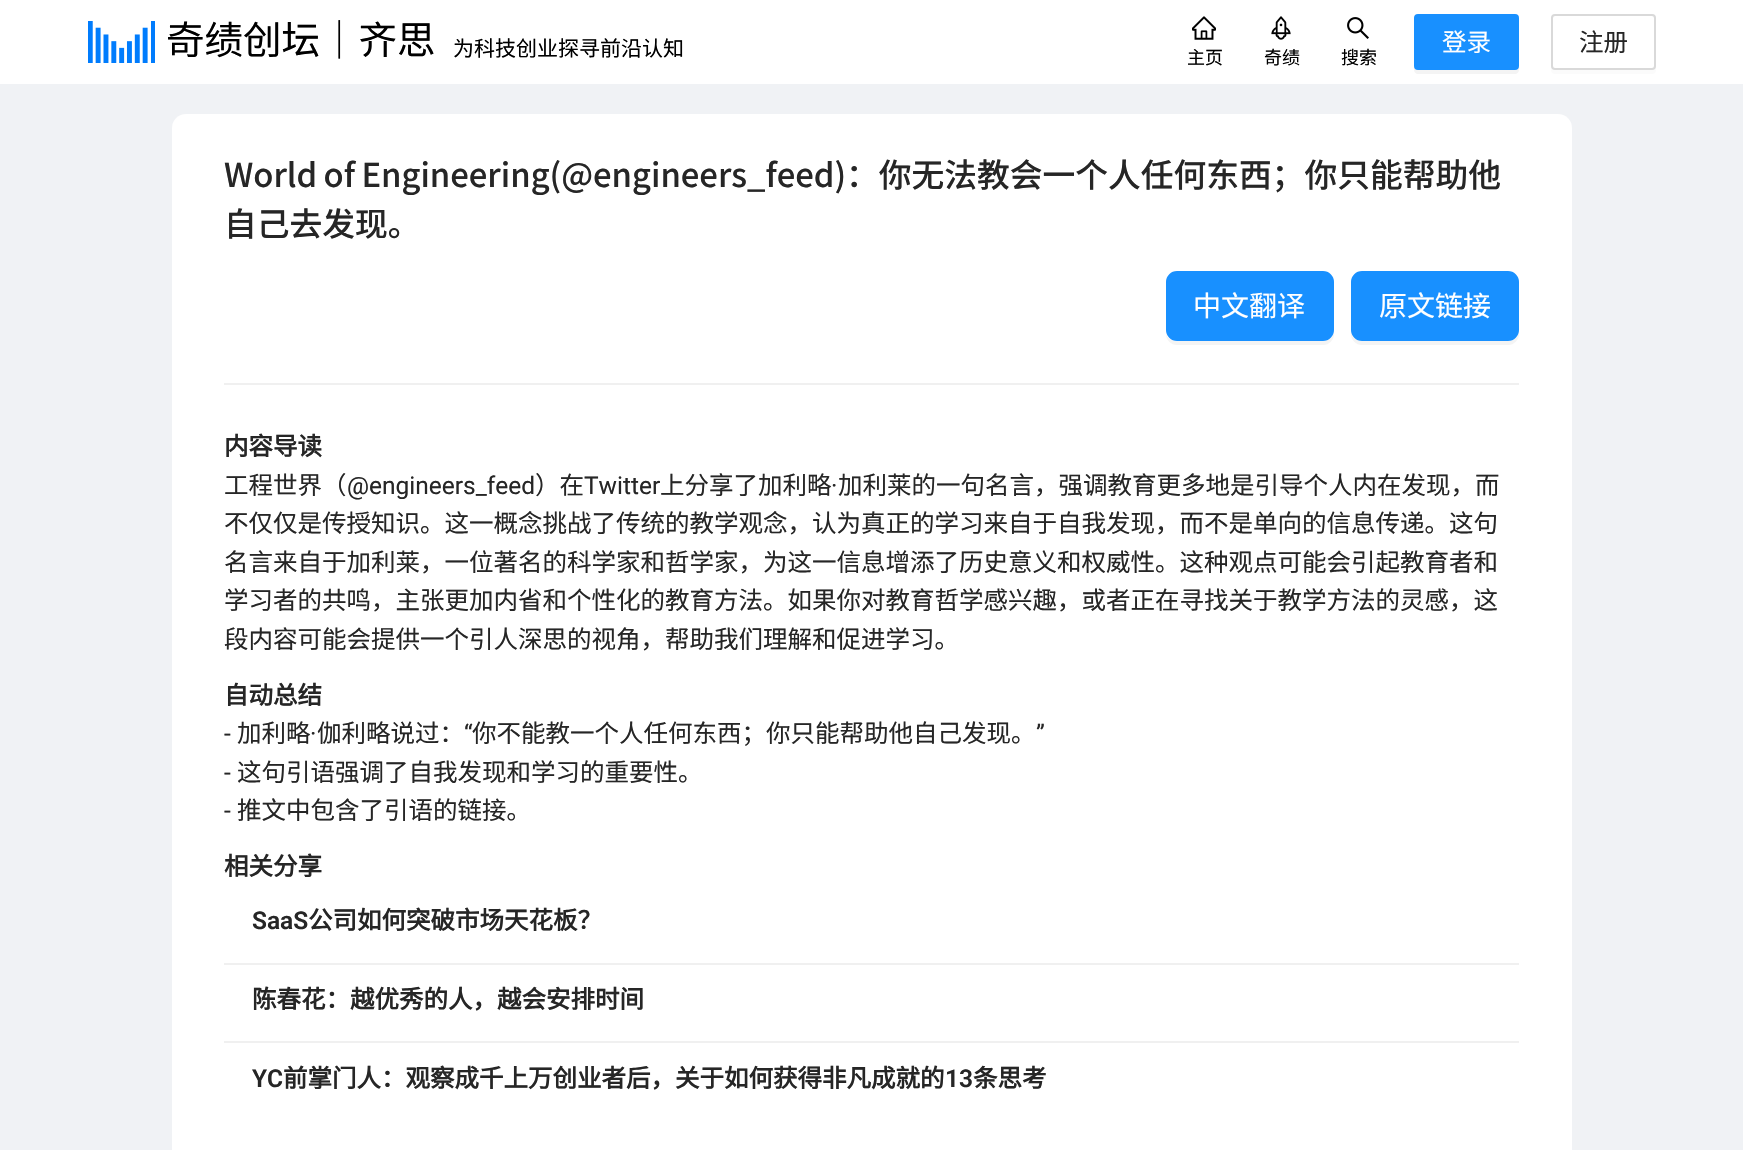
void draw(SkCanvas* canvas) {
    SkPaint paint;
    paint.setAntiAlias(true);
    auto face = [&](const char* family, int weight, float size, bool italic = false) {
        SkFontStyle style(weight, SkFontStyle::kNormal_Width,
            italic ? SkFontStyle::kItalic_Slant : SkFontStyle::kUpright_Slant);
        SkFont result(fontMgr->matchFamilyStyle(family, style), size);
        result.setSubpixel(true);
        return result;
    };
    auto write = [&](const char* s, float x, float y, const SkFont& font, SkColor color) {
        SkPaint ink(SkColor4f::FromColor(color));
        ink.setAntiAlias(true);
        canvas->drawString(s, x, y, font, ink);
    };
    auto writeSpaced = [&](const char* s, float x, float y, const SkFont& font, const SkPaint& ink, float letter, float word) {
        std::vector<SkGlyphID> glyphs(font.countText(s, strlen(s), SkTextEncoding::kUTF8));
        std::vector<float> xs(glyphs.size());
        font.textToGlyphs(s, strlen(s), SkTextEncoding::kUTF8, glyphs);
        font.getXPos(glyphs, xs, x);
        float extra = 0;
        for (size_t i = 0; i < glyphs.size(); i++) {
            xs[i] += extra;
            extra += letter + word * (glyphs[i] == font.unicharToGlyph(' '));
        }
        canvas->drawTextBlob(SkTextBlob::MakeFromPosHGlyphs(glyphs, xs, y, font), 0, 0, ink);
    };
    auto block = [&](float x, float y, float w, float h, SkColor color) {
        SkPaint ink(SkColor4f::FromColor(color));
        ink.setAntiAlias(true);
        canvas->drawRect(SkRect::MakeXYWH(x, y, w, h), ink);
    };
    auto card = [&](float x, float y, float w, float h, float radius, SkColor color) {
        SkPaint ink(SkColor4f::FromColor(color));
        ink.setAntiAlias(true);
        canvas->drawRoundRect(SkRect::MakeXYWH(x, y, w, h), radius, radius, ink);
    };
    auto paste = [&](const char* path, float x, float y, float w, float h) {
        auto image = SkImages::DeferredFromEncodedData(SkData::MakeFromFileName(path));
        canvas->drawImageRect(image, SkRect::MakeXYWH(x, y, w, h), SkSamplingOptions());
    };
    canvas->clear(SkColorSetRGB(240, 242, 245));
    block(0, 0, 1743, 84, SK_ColorWHITE);
    paste("pic1.png", 88, 21, 67, 42);
    auto kFont1 = face("Noto Sans CJK SC", 400, 38.5f);
    write("奇绩创坛｜齐思", 166, 54, kFont1, SK_ColorBLACK);
    auto kFont2 = face("Noto Sans CJK SC", 400, 21);
    write("为科技创业探寻前沿认知", 453, 56, kFont2, SK_ColorBLACK);
    paint.setColor(SkColorSetRGB(244, 244, 244));
    canvas->drawPath(SkPathBuilder().moveTo(1414, 66).lineTo(1414, 70).cubicTo(1414, 72, 1416, 74, 1418, 74).lineTo(1515, 74).cubicTo(1517, 74, 1519, 72, 1519, 70).lineTo(1519, 66).cubicTo(1519, 68, 1517, 70, 1516, 70).lineTo(1418, 70).cubicTo(1416, 70, 1414, 68, 1414, 66).close().detach(), paint);
    paint.setColor(SkColorSetRGB(24, 144, 255));
    canvas->drawRoundRect(SkRect::MakeXYWH(1415, 15, 103, 54), 3, 3, paint);
    paint.setStyle(SkPaint::kStroke_Style);
    paint.setStrokeWidth(2);
    canvas->drawRoundRect(SkRect::MakeXYWH(1415, 15, 103, 54), 3, 3, paint);
    auto kFont3 = face("Noto Sans CJK SC", 400, 24.5f);
    write("登录", 1442, 51, kFont3, SK_ColorWHITE);
    paint.setStyle(SkPaint::kFill_Style);
    paint.setColor(SkColorSetRGB(251, 251, 251));
    canvas->drawPath(SkPathBuilder().moveTo(1551, 68).lineTo(1551, 70).cubicTo(1551, 72, 1553, 74, 1555, 74).lineTo(1652, 74).cubicTo(1654, 74, 1656, 72, 1656, 70).lineTo(1656, 22).lineTo(1656, 20).lineTo(1656, 66).cubicTo(1656, 68, 1654, 70, 1652, 70).lineTo(1554, 70).cubicTo(1553, 70, 1552, 69, 1551, 68).close().detach(), paint);
    paint.setStyle(SkPaint::kStroke_Style);
    paint.setColor(SkColorSetRGB(217, 217, 217));
    canvas->drawRoundRect(SkRect::MakeXYWH(1552, 15, 103, 54), 3, 3, paint);
    write("注册", 1579, 51, kFont3, SkColorSetRGB(38, 38, 38));
    paste("pic2.png", 1192, 16, 24, 24);
    auto kFont4 = face("Noto Sans CJK SC", 400, 18);
    write("主页", 1187, 64, kFont4, SK_ColorBLACK);
    paste("pic3.png", 1271, 16, 20, 24);
    write("奇绩", 1264, 64, kFont4, SK_ColorBLACK);
    paste("pic4.png", 1347, 17, 22, 22);
    write("搜索", 1341, 64, kFont4, SK_ColorBLACK);
    card(172, 114, 1400, 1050, 14, SK_ColorWHITE);
    auto kFont5 = face("Noto Sans SC", 500, 32.75f);
    paint.setStyle(SkPaint::kFill_Style);
    paint.setColor(SkColorSetRGB(38, 38, 38));
    writeSpaced("World of Engineering(@engineers_feed)：你无法教会一个人任何东西；你只能帮助他", 224, 187, kFont5, paint, 0, -1);
    write("自己去发现。", 224, 236, kFont5, SkColorSetRGB(38, 38, 38));
    paint.setColor(SkColorSetRGB(244, 244, 244));
    canvas->drawPath(SkPathBuilder().moveTo(1166, 334).cubicTo(1166, 340, 1171, 345, 1177, 345).lineTo(1323, 345).cubicTo(1329, 345, 1334, 340, 1334, 334).lineTo(1334, 286).lineTo(1334, 283).lineTo(1334, 331).cubicTo(1334, 337, 1329, 341, 1323, 341).lineTo(1176, 341).cubicTo(1171, 341, 1167, 338, 1166, 334).close().detach(), paint);
    paint.setColor(SkColorSetRGB(24, 144, 255));
    canvas->drawRoundRect(SkRect::MakeXYWH(1167, 272, 166, 68), 10, 10, paint);
    paint.setStyle(SkPaint::kStroke_Style);
    canvas->drawRoundRect(SkRect::MakeXYWH(1167, 272, 166, 68), 10, 10, paint);
    auto kFont6 = face("Noto Sans CJK SC", 400, 28);
    write("中文翻译", 1193, 316, kFont6, SK_ColorWHITE);
    paint.setStyle(SkPaint::kFill_Style);
    paint.setColor(SkColorSetRGB(244, 244, 244));
    canvas->drawPath(SkPathBuilder().moveTo(1351, 331).lineTo(1351, 334).cubicTo(1351, 340, 1356, 345, 1362, 345).lineTo(1508, 345).cubicTo(1514, 345, 1519, 340, 1519, 334).lineTo(1519, 331).cubicTo(1519, 337, 1514, 341, 1508, 341).lineTo(1362, 341).cubicTo(1356, 341, 1351, 337, 1351, 331).close().detach(), paint);
    paint.setColor(SkColorSetRGB(24, 144, 255));
    canvas->drawRoundRect(SkRect::MakeXYWH(1352, 272, 166, 68), 10, 10, paint);
    paint.setStyle(SkPaint::kStroke_Style);
    canvas->drawRoundRect(SkRect::MakeXYWH(1352, 272, 166, 68), 10, 10, paint);
    write("原文链接", 1379, 316, kFont6, SK_ColorWHITE);
    block(224, 383, 1295, 2, SkColorSetRGB(240, 240, 240));
    auto kFont7 = face("Noto Sans CJK SC", 700, 24.5f);
    write("内容导读", 224, 455, kFont7, SkColorSetRGB(38, 38, 38));
    write("工程世界（", 224, 494, kFont3, SkColorSetRGB(38, 38, 38));
    auto kFont8 = face("Roboto", 400, 24.5f);
    write("@engineers_feed", 347, 494, kFont8, SkColorSetRGB(38, 38, 38));
    write("）在", 535, 494, kFont3, SkColorSetRGB(38, 38, 38));
    write("Twitter", 584, 494, kFont8, SkColorSetRGB(38, 38, 38));
    write("上分享了加利略", 660, 494, kFont3, SkColorSetRGB(38, 38, 38));
    write("·", 831, 494, kFont8, SkColorSetRGB(38, 38, 38));
    write("加利莱的一句名言，强调教育更多地是引导个人内在发现，而", 838, 494, kFont3, SkColorSetRGB(38, 38, 38));
    write("不仅仅是传授知识。这一概念挑战了传统的教学观念，认为真正的学习来自于自我发现，而不是单向的信息传递。这句", 224, 532, kFont3, SkColorSetRGB(38, 38, 38));
    write("名言来自于加利莱，一位著名的科学家和哲学家，为这一信息增添了历史意义和权威性。这种观点可能会引起教育者和", 224, 571, kFont3, SkColorSetRGB(38, 38, 38));
    write("学习者的共鸣，主张更加内省和个性化的教育方法。如果你对教育哲学感兴趣，或者正在寻找关于教学方法的灵感，这", 224, 609, kFont3, SkColorSetRGB(38, 38, 38));
    write("段内容可能会提供一个引人深思的视角，帮助我们理解和促进学习。", 224, 648, kFont3, SkColorSetRGB(38, 38, 38));
    write("自动总结", 224, 704, kFont7, SkColorSetRGB(38, 38, 38));
    write("加利略", 237, 742, kFont3, SkColorSetRGB(38, 38, 38));
    write("伽利略说过：", 317, 742, kFont3, SkColorSetRGB(38, 38, 38));
    write("“", 464, 742, kFont8, SkColorSetRGB(38, 38, 38));
    write("你不能教一个人任何东西；你只能帮助他自己发现。", 472, 742, kFont3, SkColorSetRGB(38, 38, 38));
    write("”", 1036, 742, kFont8, SkColorSetRGB(38, 38, 38));
    write("-", 224, 742, kFont8, SkColorSetRGB(38, 38, 38));
    write("·", 310, 742, kFont8, SkColorSetRGB(38, 38, 38));
    write("-", 224, 781, kFont8, SkColorSetRGB(38, 38, 38));
    write("这句引语强调了自我发现和学习的重要性。", 237, 781, kFont3, SkColorSetRGB(38, 38, 38));
    write("-", 224, 819, kFont8, SkColorSetRGB(38, 38, 38));
    write("推文中包含了引语的链接。", 237, 819, kFont3, SkColorSetRGB(38, 38, 38));
    write("相关分享", 224, 875, kFont7, SkColorSetRGB(38, 38, 38));
    block(224, 963, 1295, 2, SkColorSetRGB(240, 240, 240));
    auto kFont9 = face("Roboto", 600, 24.5f);
    write("SaaS", 252, 929, kFont9, SkColorSetRGB(38, 38, 38));
    write("公司如何突破市场天花板？", 308, 929, kFont7, SkColorSetRGB(38, 38, 38));
    block(224, 1041, 1295, 2, SkColorSetRGB(240, 240, 240));
    write("陈春花：越优秀的人，越会安排时间", 252, 1008, kFont7, SkColorSetRGB(38, 38, 38));
    write("YC", 252, 1087, kFont9, SkColorSetRGB(38, 38, 38));
    write("前掌门人：观察成千上万创业者后，关于如何获得非凡成就的", 283, 1087, kFont7, SkColorSetRGB(38, 38, 38));
    write("13", 945, 1087, kFont9, SkColorSetRGB(38, 38, 38));
    write("条思考", 973, 1087, kFont7, SkColorSetRGB(38, 38, 38));
}
